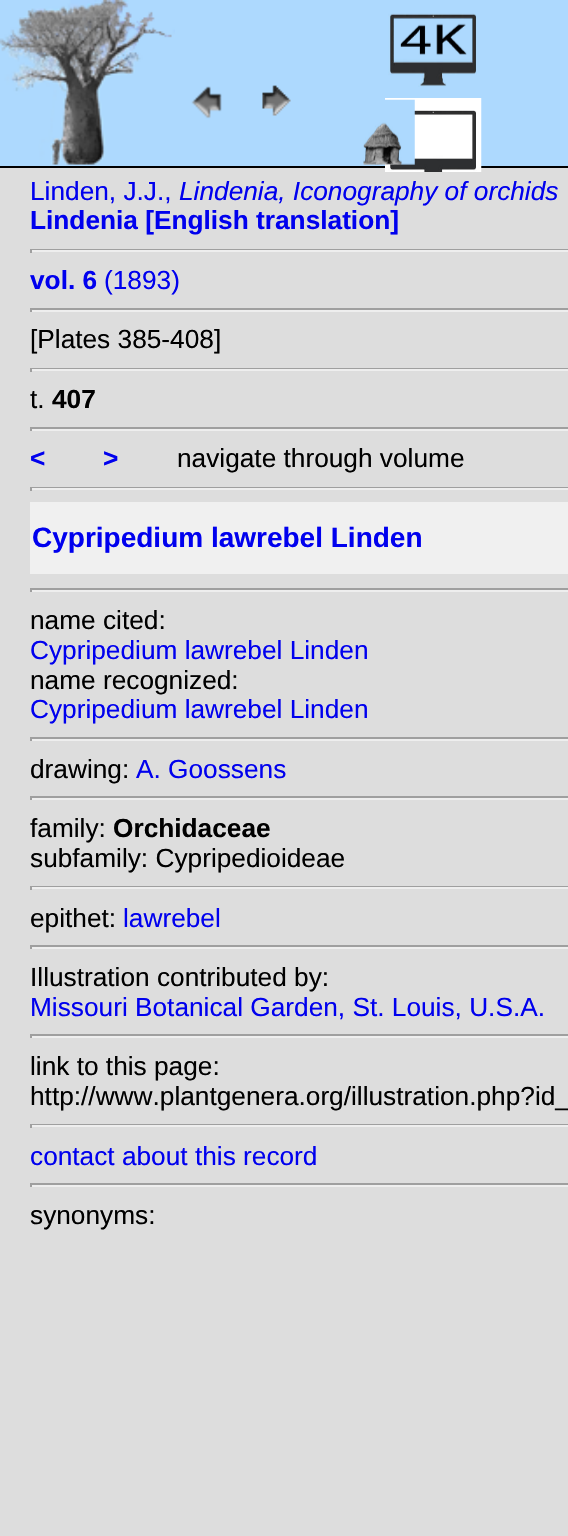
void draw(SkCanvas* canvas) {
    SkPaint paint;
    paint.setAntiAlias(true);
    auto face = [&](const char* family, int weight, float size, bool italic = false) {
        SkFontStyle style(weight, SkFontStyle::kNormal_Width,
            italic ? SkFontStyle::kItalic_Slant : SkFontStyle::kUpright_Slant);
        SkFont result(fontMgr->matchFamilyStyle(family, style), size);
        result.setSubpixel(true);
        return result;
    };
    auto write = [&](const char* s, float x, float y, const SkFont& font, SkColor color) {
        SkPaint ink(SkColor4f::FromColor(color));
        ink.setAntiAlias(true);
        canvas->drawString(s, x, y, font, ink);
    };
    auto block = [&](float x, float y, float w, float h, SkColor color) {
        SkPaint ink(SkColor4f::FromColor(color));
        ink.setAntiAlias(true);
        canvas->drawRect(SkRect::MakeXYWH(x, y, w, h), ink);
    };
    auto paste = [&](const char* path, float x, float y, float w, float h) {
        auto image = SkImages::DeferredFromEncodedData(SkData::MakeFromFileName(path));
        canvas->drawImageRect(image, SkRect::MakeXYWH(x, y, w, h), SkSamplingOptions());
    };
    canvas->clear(SkColorSetRGB(221, 221, 221));
    block(0, 0, 568, 166, SkColorSetRGB(173, 217, 254));
    block(0, 166, 568, 2, SK_ColorBLACK);
    paste("pic1.png", 0, 0, 175, 165);
    paste("pic2.png", 191, 86, 31, 33);
    paste("pic3.png", 262, 85, 29, 31);
    paste("pic4.png", 388, 13, 89, 74);
    paste("pic5.png", 385, 98, 97, 74);
    paste("pic6.png", 363, 99, 52, 66);
    auto kFont1 = face("Liberation Sans", 400, 26.25f);
    write("Linden, J.J.,", 30, 200, kFont1, SkColorSetRGB(0, 0, 238));
    auto kFont2 = face("Liberation Sans", 400, 26.25f, true);
    write("Lindenia, Iconography of orchids", 179, 200, kFont2, SkColorSetRGB(0, 0, 238));
    auto kFont3 = face("Liberation Sans", 700, 26.25f);
    write("Lindenia [English translation]", 30, 229, kFont3, SkColorSetRGB(0, 0, 238));
    block(30, 249, 538, 1, SkColorSetRGB(159, 159, 159));
    block(30, 250, 538, 2, SkColorSetRGB(238, 238, 238));
    block(30, 249, 2, 4, SkColorSetRGB(159, 159, 159));
    write("vol. 6", 30, 289, kFont3, SkColorSetRGB(0, 0, 238));
    write("(1893)", 104, 289, kFont1, SkColorSetRGB(0, 0, 238));
    block(30, 308, 538, 2, SkColorSetRGB(159, 159, 159));
    block(30, 310, 538, 2, SkColorSetRGB(238, 238, 238));
    block(30, 308, 2, 4, SkColorSetRGB(159, 159, 159));
    write("[Plates 385-408]", 30, 348, kFont1, SK_ColorBLACK);
    block(30, 368, 538, 1, SkColorSetRGB(159, 159, 159));
    block(30, 369, 538, 2, SkColorSetRGB(238, 238, 238));
    block(30, 368, 2, 4, SkColorSetRGB(159, 159, 159));
    write("t.", 30, 408, kFont1, SK_ColorBLACK);
    write("407", 52, 408, kFont3, SK_ColorBLACK);
    block(30, 427, 538, 2, SkColorSetRGB(159, 159, 159));
    block(30, 429, 538, 2, SkColorSetRGB(238, 238, 238));
    block(30, 427, 2, 4, SkColorSetRGB(159, 159, 159));
    write("<", 30, 467, kFont3, SkColorSetRGB(0, 0, 238));
    write(">", 103, 467, kFont3, SkColorSetRGB(0, 0, 238));
    write("navigate through volume", 177, 467, kFont1, SK_ColorBLACK);
    block(30, 487, 538, 1, SkColorSetRGB(159, 159, 159));
    block(30, 488, 538, 2, SkColorSetRGB(238, 238, 238));
    block(30, 487, 2, 4, SkColorSetRGB(159, 159, 159));
    block(30, 502, 538, 72, SkColorSetRGB(240, 240, 240));
    auto kFont4 = face("Liberation Sans", 700, 28);
    write("Cypripedium lawrebel Linden", 32, 547, kFont4, SkColorSetRGB(0, 0, 238));
    block(30, 588, 538, 2, SkColorSetRGB(159, 159, 159));
    block(30, 590, 538, 2, SkColorSetRGB(238, 238, 238));
    block(30, 588, 2, 4, SkColorSetRGB(159, 159, 159));
    write("name cited:", 30, 629, kFont1, SK_ColorBLACK);
    write("Cypripedium lawrebel Linden", 30, 659, kFont1, SkColorSetRGB(0, 0, 238));
    write("name recognized:", 30, 689, kFont1, SK_ColorBLACK);
    write("Cypripedium lawrebel Linden", 30, 718, kFont1, SkColorSetRGB(0, 0, 238));
    block(30, 737, 538, 2, SkColorSetRGB(159, 159, 159));
    block(30, 739, 538, 2, SkColorSetRGB(238, 238, 238));
    block(30, 737, 2, 4, SkColorSetRGB(159, 159, 159));
    write("drawing:", 30, 778, kFont1, SK_ColorBLACK);
    write("A. Goossens", 136, 778, kFont1, SkColorSetRGB(0, 0, 238));
    block(30, 796, 538, 2, SkColorSetRGB(159, 159, 159));
    block(30, 798, 538, 2, SkColorSetRGB(238, 238, 238));
    block(30, 796, 2, 4, SkColorSetRGB(159, 159, 159));
    write("family:", 30, 837, kFont1, SK_ColorBLACK);
    write("Orchidaceae", 113, 837, kFont3, SK_ColorBLACK);
    write("subfamily: Cypripedioideae", 30, 867, kFont1, SK_ColorBLACK);
    block(30, 886, 538, 1, SkColorSetRGB(159, 159, 159));
    block(30, 887, 538, 2, SkColorSetRGB(238, 238, 238));
    block(30, 886, 2, 4, SkColorSetRGB(159, 159, 159));
    write("epithet:", 30, 927, kFont1, SK_ColorBLACK);
    write("lawrebel", 123, 927, kFont1, SkColorSetRGB(0, 0, 238));
    block(30, 945, 538, 2, SkColorSetRGB(159, 159, 159));
    block(30, 947, 538, 2, SkColorSetRGB(238, 238, 238));
    block(30, 945, 2, 4, SkColorSetRGB(159, 159, 159));
    write("Illustration contributed by:", 30, 986, kFont1, SK_ColorBLACK);
    write("Missouri Botanical Garden, St. Louis, U.S.A.", 30, 1016, kFont1, SkColorSetRGB(0, 0, 238));
    block(30, 1034, 538, 2, SkColorSetRGB(159, 159, 159));
    block(30, 1036, 538, 2, SkColorSetRGB(238, 238, 238));
    block(30, 1034, 2, 4, SkColorSetRGB(159, 159, 159));
    write("link to this page:", 30, 1075, kFont1, SK_ColorBLACK);
    write("http://www.plantgenera.org/illustration.php?id_", 30, 1105, kFont1, SK_ColorBLACK);
    block(30, 1124, 538, 1, SkColorSetRGB(159, 159, 159));
    block(30, 1125, 538, 2, SkColorSetRGB(238, 238, 238));
    block(30, 1124, 2, 4, SkColorSetRGB(159, 159, 159));
    write("contact about this record", 30, 1165, kFont1, SkColorSetRGB(0, 0, 238));
    block(30, 1183, 538, 2, SkColorSetRGB(159, 159, 159));
    block(30, 1185, 538, 2, SkColorSetRGB(238, 238, 238));
    block(30, 1183, 2, 4, SkColorSetRGB(159, 159, 159));
    write("synonyms:", 30, 1224, kFont1, SK_ColorBLACK);
}
